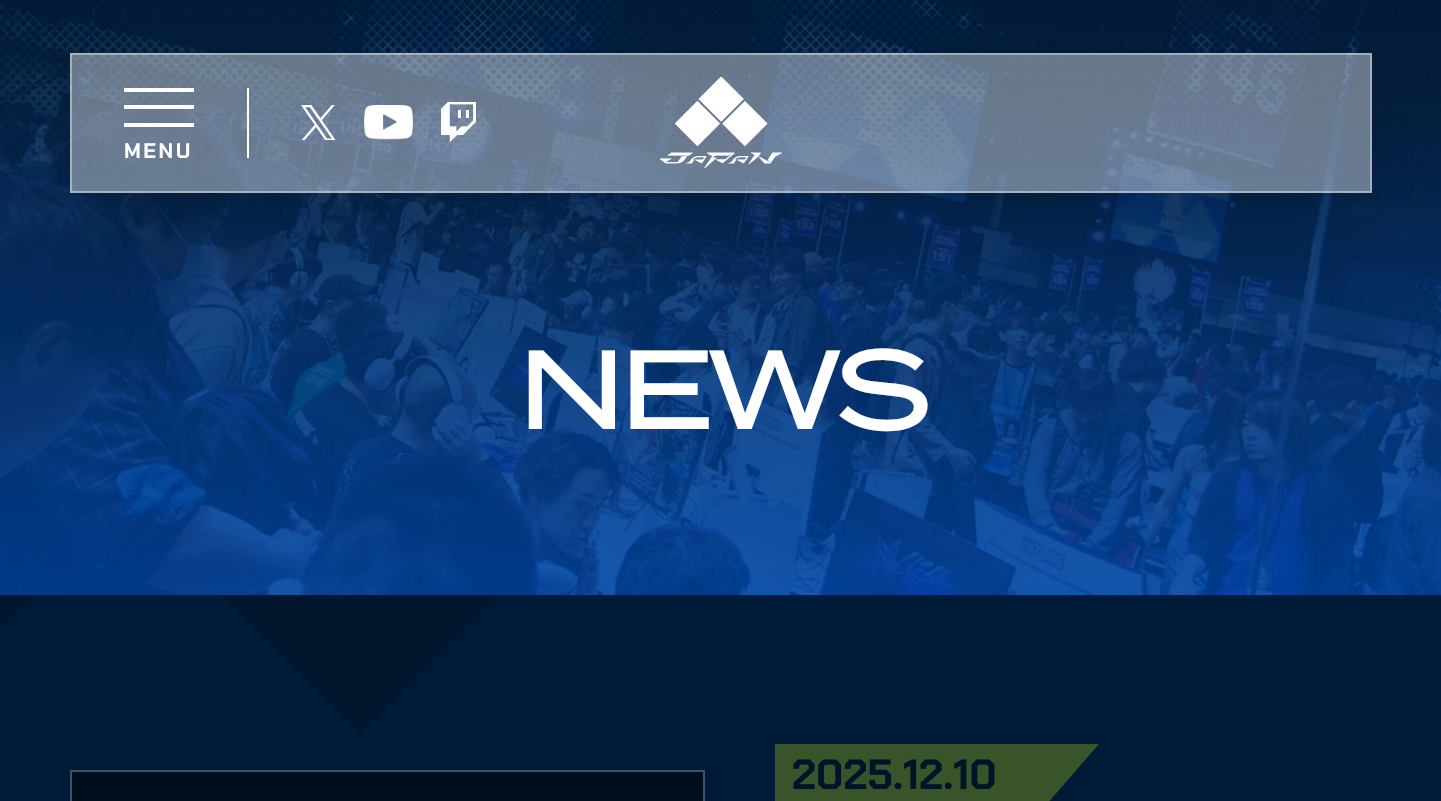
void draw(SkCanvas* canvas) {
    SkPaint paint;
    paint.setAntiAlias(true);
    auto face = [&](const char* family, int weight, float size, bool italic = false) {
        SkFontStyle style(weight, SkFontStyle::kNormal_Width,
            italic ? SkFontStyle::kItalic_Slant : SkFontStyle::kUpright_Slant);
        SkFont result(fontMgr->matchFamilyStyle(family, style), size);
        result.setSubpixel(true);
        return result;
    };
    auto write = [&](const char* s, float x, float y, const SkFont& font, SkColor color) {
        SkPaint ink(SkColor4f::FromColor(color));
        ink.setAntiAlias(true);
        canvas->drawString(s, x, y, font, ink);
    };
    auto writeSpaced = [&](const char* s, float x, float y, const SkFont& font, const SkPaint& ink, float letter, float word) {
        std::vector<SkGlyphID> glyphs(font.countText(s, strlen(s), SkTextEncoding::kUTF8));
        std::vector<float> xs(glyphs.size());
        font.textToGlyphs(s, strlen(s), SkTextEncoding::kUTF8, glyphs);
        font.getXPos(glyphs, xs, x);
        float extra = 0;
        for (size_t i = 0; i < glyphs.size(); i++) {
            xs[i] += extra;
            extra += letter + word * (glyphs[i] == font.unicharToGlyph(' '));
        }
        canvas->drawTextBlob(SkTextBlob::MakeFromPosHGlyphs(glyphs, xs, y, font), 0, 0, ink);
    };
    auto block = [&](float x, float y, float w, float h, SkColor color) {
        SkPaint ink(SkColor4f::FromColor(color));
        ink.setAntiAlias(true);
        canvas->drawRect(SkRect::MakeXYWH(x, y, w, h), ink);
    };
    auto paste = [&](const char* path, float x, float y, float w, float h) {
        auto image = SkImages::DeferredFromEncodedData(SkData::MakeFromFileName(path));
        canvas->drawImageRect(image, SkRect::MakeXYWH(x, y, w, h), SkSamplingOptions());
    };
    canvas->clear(SkColorSetRGB(0, 27, 55));
    paint.setColor(SkColorSetRGB(0, 22, 44));
    canvas->drawPath(SkPathBuilder(SkPathFillType::kEvenOdd).moveTo(360, 734).lineTo(142, 516).lineTo(360, 298).lineTo(577, 516).close().moveTo(-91, 283).lineTo(126, 65).lineTo(345, 283).lineTo(126, 501).close().moveTo(-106, 735).lineTo(-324, 517).lineTo(-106, 299).lineTo(112, 517).close().detach(), paint);
    paste("pic5.png", 0, 0, 1441, 595);
    paste("pic6.png", 0, 0, 1441, 191);
    canvas->save();
    canvas->clipPath(SkPathBuilder(SkPathFillType::kEvenOdd).moveTo(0, 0).lineTo(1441, 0).lineTo(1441, 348).lineTo(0, 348).close().moveTo(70, 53).lineTo(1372, 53).lineTo(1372, 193).lineTo(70, 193).close().detach(), true);
    paint.setColor(SkColorSetARGB(64, 0, 0, 0));
    paint.setMaskFilter(SkMaskFilter::MakeBlur(kNormal_SkBlurStyle, 44));
    canvas->drawRect(SkRect::MakeXYWH(91, 117, 1260, 98), paint);
    paint.setMaskFilter(nullptr);
    canvas->restore();
    block(70, 53, 1302, 140, SkColorSetARGB(102, 255, 255, 255));
    paint.setStyle(SkPaint::kStroke_Style);
    paint.setStrokeWidth(2);
    paint.setColor(SkColorSetARGB(102, 255, 255, 255));
    canvas->drawRect(SkRect::MakeXYWH(71, 54, 1300, 138), paint);
    block(124, 88, 70, 4, SK_ColorWHITE);
    block(124, 105, 70, 4, SK_ColorWHITE);
    block(124, 123, 70, 4, SK_ColorWHITE);
    auto kFont1 = face("Chakra Petch", 700, 21);
    paint.setStyle(SkPaint::kFill_Style);
    paint.setColor(SK_ColorWHITE);
    writeSpaced("MENU", 124, 158, kFont1, paint, 2.5f, 0);
    block(247, 88, 2, 70, SK_ColorWHITE);
    paste("pic1.png", 301, 105, 35, 35);
    paste("pic2.png", 364, 105, 49, 35);
    paste("pic3.png", 441, 102, 35, 41);
    paste("pic4.png", 660, 77, 122, 91);
    auto kFont2 = face("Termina", 500, 112);
    writeSpaced("NEWS", 517, 429, kFont2, paint, -8, 0);
    paint.setColor(SkColorSetRGB(0, 15, 30));
    canvas->drawRect(SkRect::MakeXYWH(71, 771, 633, 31), paint);
    paint.setStyle(SkPaint::kStroke_Style);
    paint.setColor(SkColorSetRGB(63, 82, 101));
    canvas->drawRect(SkRect::MakeXYWH(71, 771, 633, 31), paint);
    paint.setStyle(SkPaint::kFill_Style);
    paint.setColor(SkColorSetRGB(58, 84, 41));
    canvas->drawPath(SkPathBuilder(SkPathFillType::kEvenOdd).moveTo(775, 744).lineTo(1099, 744).lineTo(1046, 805).lineTo(775, 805).close().detach(), paint);
    auto kFont3 = face("Chakra Petch", 700, 42);
    write("2025.12.10", 792, 789, kFont3, SkColorSetRGB(0, 20, 41));
}
